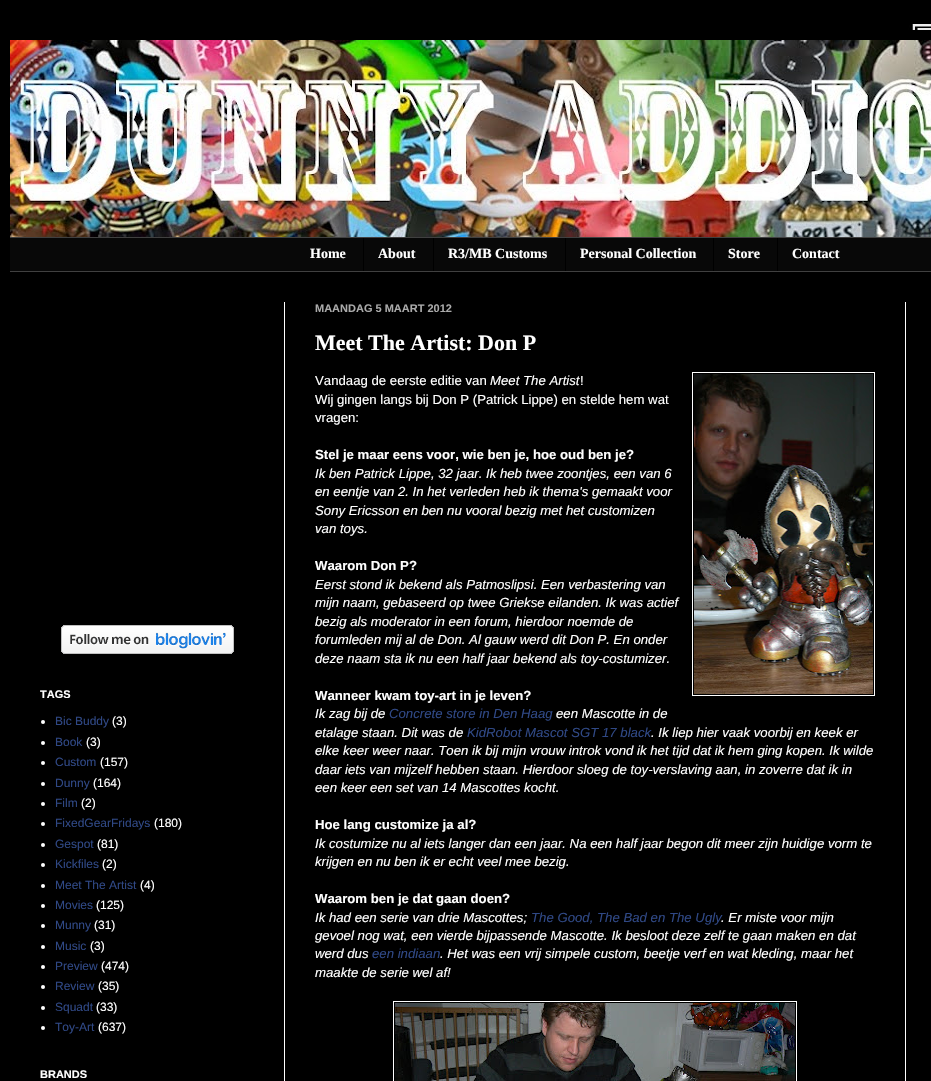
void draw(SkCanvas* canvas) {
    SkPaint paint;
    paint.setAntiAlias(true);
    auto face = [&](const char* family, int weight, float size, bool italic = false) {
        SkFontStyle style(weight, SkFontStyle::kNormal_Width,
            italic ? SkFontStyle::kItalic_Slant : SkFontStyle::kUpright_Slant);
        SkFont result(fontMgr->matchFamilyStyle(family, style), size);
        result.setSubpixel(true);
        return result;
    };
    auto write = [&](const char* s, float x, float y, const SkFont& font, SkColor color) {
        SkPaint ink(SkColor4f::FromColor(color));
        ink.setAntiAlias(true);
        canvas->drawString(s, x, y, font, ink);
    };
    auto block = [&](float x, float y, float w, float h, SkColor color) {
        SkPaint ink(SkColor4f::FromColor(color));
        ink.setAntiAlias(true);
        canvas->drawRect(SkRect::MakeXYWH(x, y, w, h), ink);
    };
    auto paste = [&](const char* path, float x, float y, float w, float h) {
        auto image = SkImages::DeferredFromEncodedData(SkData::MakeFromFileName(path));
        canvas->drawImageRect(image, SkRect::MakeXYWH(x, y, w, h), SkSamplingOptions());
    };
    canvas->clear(SK_ColorBLACK);
    paste("pic1.png", 900, 24, 31, 6);
    paint.setColor(SkColorSetARGB(38, 0, 0, 0));
    paint.setMaskFilter(SkMaskFilter::MakeBlur(kNormal_SkBlurStyle, 20));
    canvas->drawRect(SkRect::MakeXYWH(0, 30, 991, 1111), paint);
    paint.setMaskFilter(nullptr);
    paste("pic2.png", 10, 40, 921, 197);
    block(10, 238, 921, 33, SkColorSetRGB(8, 8, 8));
    block(10, 237, 921, 1, SkColorSetRGB(64, 64, 64));
    block(10, 271, 921, 1, SkColorSetRGB(64, 64, 64));
    auto kFont1 = face("Liberation Serif", 700, 14);
    write("Home", 310, 258, kFont1, SK_ColorWHITE);
    block(363, 238, 1, 33, SK_ColorBLACK);
    write("About", 378, 258, kFont1, SK_ColorWHITE);
    block(433, 238, 1, 33, SK_ColorBLACK);
    write("R3/MB Customs", 448, 258, kFont1, SK_ColorWHITE);
    block(565, 238, 1, 33, SK_ColorBLACK);
    write("Personal Collection", 580, 258, kFont1, SK_ColorWHITE);
    block(713, 238, 1, 33, SK_ColorBLACK);
    write("Store", 728, 258, kFont1, SK_ColorWHITE);
    block(777, 238, 1, 33, SK_ColorBLACK);
    write("Contact", 792, 258, kFont1, SK_ColorWHITE);
    block(284, 302, 1, 779, SK_ColorWHITE);
    block(905, 302, 1, 779, SK_ColorWHITE);
    paste("pic3.png", 61, 625, 173, 29);
    auto kFont2 = face("Liberation Sans", 700, 11);
    write("TAGS", 40, 698, kFont2, SK_ColorWHITE);
    paint.setColor(SK_ColorWHITE);
    canvas->drawCircle(43, 722, 2, paint);
    auto kFont3 = face("Liberation Sans", 400, 12);
    write("Bic Buddy", 55, 725, kFont3, SkColorSetRGB(47, 72, 133));
    write("(3)", 112, 725, kFont3, SK_ColorWHITE);
    canvas->drawCircle(43, 743, 2, paint);
    write("Book", 55, 746, kFont3, SkColorSetRGB(47, 72, 133));
    write("(3)", 86, 746, kFont3, SK_ColorWHITE);
    canvas->drawCircle(43, 763, 2, paint);
    write("Custom", 55, 766, kFont3, SkColorSetRGB(47, 72, 133));
    write("(157)", 100, 766, kFont3, SK_ColorWHITE);
    canvas->drawCircle(43, 784, 2, paint);
    write("Dunny", 55, 787, kFont3, SkColorSetRGB(47, 72, 133));
    write("(164)", 93, 787, kFont3, SK_ColorWHITE);
    canvas->drawCircle(43, 804, 2, paint);
    write("Film", 55, 807, kFont3, SkColorSetRGB(47, 72, 133));
    write("(2)", 81, 807, kFont3, SK_ColorWHITE);
    canvas->drawCircle(43, 824, 2, paint);
    write("FixedGearFridays", 55, 827, kFont3, SkColorSetRGB(47, 72, 133));
    write("(180)", 154, 827, kFont3, SK_ColorWHITE);
    canvas->drawCircle(43, 845, 2, paint);
    write("Gespot", 55, 848, kFont3, SkColorSetRGB(47, 72, 133));
    write("(81)", 97, 848, kFont3, SK_ColorWHITE);
    canvas->drawCircle(43, 865, 2, paint);
    write("Kickfiles", 55, 868, kFont3, SkColorSetRGB(47, 72, 133));
    write("(2)", 102, 868, kFont3, SK_ColorWHITE);
    canvas->drawCircle(43, 886, 2, paint);
    write("Meet The Artist", 55, 889, kFont3, SkColorSetRGB(47, 72, 133));
    write("(4)", 140, 889, kFont3, SK_ColorWHITE);
    canvas->drawCircle(43, 906, 2, paint);
    write("Movies", 55, 909, kFont3, SkColorSetRGB(47, 72, 133));
    write("(125)", 96, 909, kFont3, SK_ColorWHITE);
    canvas->drawCircle(43, 926, 2, paint);
    write("Munny", 55, 929, kFont3, SkColorSetRGB(47, 72, 133));
    write("(31)", 94, 929, kFont3, SK_ColorWHITE);
    canvas->drawCircle(43, 947, 2, paint);
    write("Music", 55, 950, kFont3, SkColorSetRGB(47, 72, 133));
    write("(3)", 90, 950, kFont3, SK_ColorWHITE);
    canvas->drawCircle(43, 967, 2, paint);
    write("Preview", 55, 970, kFont3, SkColorSetRGB(47, 72, 133));
    write("(474)", 101, 970, kFont3, SK_ColorWHITE);
    canvas->drawCircle(43, 987, 2, paint);
    write("Review", 55, 990, kFont3, SkColorSetRGB(47, 72, 133));
    write("(35)", 98, 990, kFont3, SK_ColorWHITE);
    canvas->drawCircle(43, 1008, 2, paint);
    write("Squadt", 55, 1011, kFont3, SkColorSetRGB(47, 72, 133));
    write("(33)", 96, 1011, kFont3, SK_ColorWHITE);
    canvas->drawCircle(43, 1028, 2, paint);
    write("Toy-Art", 55, 1031, kFont3, SkColorSetRGB(47, 72, 133));
    write("(637)", 98, 1031, kFont3, SK_ColorWHITE);
    write("BRANDS", 40, 1078, kFont2, SK_ColorWHITE);
    write("MAANDAG 5 MAART 2012", 315, 312, kFont2, SkColorSetRGB(170, 170, 170));
    auto kFont4 = face("Liberation Serif", 700, 22);
    write("Meet The Artist: Don P", 315, 350, kFont4, SK_ColorWHITE);
    auto kFont5 = face("Liberation Sans", 400, 13.2f);
    write("Vandaag de eerste editie van", 315, 385, kFont5, SK_ColorWHITE);
    auto kFont6 = face("Liberation Sans", 400, 13.2f, true);
    write("Meet The Artist", 490, 385, kFont6, SK_ColorWHITE);
    write("!", 580, 385, kFont5, SK_ColorWHITE);
    paint.setStyle(SkPaint::kStroke_Style);
    paint.setStrokeWidth(1);
    canvas->drawRect(SkRect::MakeXYWH(692.5f, 372.5f, 182, 323), paint);
    paste("pic4.png", 694, 374, 179, 320);
    write("Wij gingen langs bij Don P (Patrick Lippe) en stelde hem wat", 315, 404, kFont5, SK_ColorWHITE);
    write("vragen:", 315, 422, kFont5, SK_ColorWHITE);
    auto kFont7 = face("Liberation Sans", 700, 13.2f);
    write("Stel je maar eens voor, wie ben je, hoe oud ben je?", 315, 459, kFont7, SK_ColorWHITE);
    write("Ik ben Patrick Lippe, 32 jaar. Ik heb twee zoontjes, een van 6", 315, 478, kFont6, SK_ColorWHITE);
    write("en eentje van 2. In het verleden heb ik thema's gemaakt voor", 315, 496, kFont6, SK_ColorWHITE);
    write("Sony Ericsson en ben nu vooral bezig met het customizen", 315, 515, kFont6, SK_ColorWHITE);
    write("van toys.", 315, 533, kFont6, SK_ColorWHITE);
    write("Waarom Don P?", 315, 570, kFont7, SK_ColorWHITE);
    write("Eerst stond ik bekend als Patmoslipsi. Een verbastering van", 315, 589, kFont6, SK_ColorWHITE);
    write("mijn naam, gebaseerd op twee Griekse eilanden. Ik was actief", 315, 607, kFont6, SK_ColorWHITE);
    write("bezig als moderator in een forum, hierdoor noemde de", 315, 626, kFont6, SK_ColorWHITE);
    write("forumleden mij al de Don. Al gauw werd dit Don P. En onder", 315, 644, kFont6, SK_ColorWHITE);
    write("deze naam sta ik nu een half jaar bekend als toy-costumizer.", 315, 663, kFont6, SK_ColorWHITE);
    write("Wanneer kwam toy-art in je leven?", 315, 700, kFont7, SK_ColorWHITE);
    write("Ik zag bij de", 315, 718, kFont6, SK_ColorWHITE);
    write("Concrete store in Den Haag", 389, 718, kFont6, SkColorSetRGB(47, 72, 133));
    write("een Mascotte in de", 556, 718, kFont6, SK_ColorWHITE);
    write("etalage staan. Dit was de", 315, 737, kFont6, SK_ColorWHITE);
    write("KidRobot Mascot SGT 17 black", 467, 737, kFont6, SkColorSetRGB(47, 72, 133));
    write(". Ik liep hier vaak voorbij en keek er", 651, 737, kFont6, SK_ColorWHITE);
    write("elke keer weer naar. Toen ik bij mijn vrouw introk vond ik het tijd dat ik hem ging kopen. Ik wilde", 315, 755, kFont6, SK_ColorWHITE);
    write("daar iets van mijzelf hebben staan. Hierdoor sloeg de toy-verslaving aan, in zoverre dat ik in", 315, 774, kFont6, SK_ColorWHITE);
    write("een keer een set van 14 Mascottes kocht.", 315, 792, kFont6, SK_ColorWHITE);
    write("Hoe lang customize ja al?", 315, 829, kFont7, SK_ColorWHITE);
    write("Ik costumize nu al iets langer dan een jaar. Na een half jaar begon dit meer zijn huidige vorm te", 315, 848, kFont6, SK_ColorWHITE);
    write("krijgen en nu ben ik er echt veel mee bezig.", 315, 866, kFont6, SK_ColorWHITE);
    write("Waarom ben je dat gaan doen?", 315, 903, kFont7, SK_ColorWHITE);
    write("Ik had een serie van drie Mascottes;", 315, 922, kFont6, SK_ColorWHITE);
    write("The Good, The Bad en The Ugly", 531, 922, kFont6, SkColorSetRGB(47, 72, 133));
    write(". Er miste voor mijn", 721, 922, kFont6, SK_ColorWHITE);
    write("gevoel nog wat, een vierde bijpassende Mascotte. Ik besloot deze zelf te gaan maken en dat", 315, 940, kFont6, SK_ColorWHITE);
    write("werd dus", 315, 958, kFont6, SK_ColorWHITE);
    write("een indiaan", 372, 958, kFont6, SkColorSetRGB(47, 72, 133));
    write(". Het was een vrij simpele custom, beetje verf en wat kleding, maar het", 440, 958, kFont6, SK_ColorWHITE);
    write("maakte de serie wel af!", 315, 977, kFont6, SK_ColorWHITE);
    canvas->drawRect(SkRect::MakeXYWH(393.5f, 1001.5f, 403, 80), paint);
    paste("pic5.png", 395, 1003, 400, 78);
}
